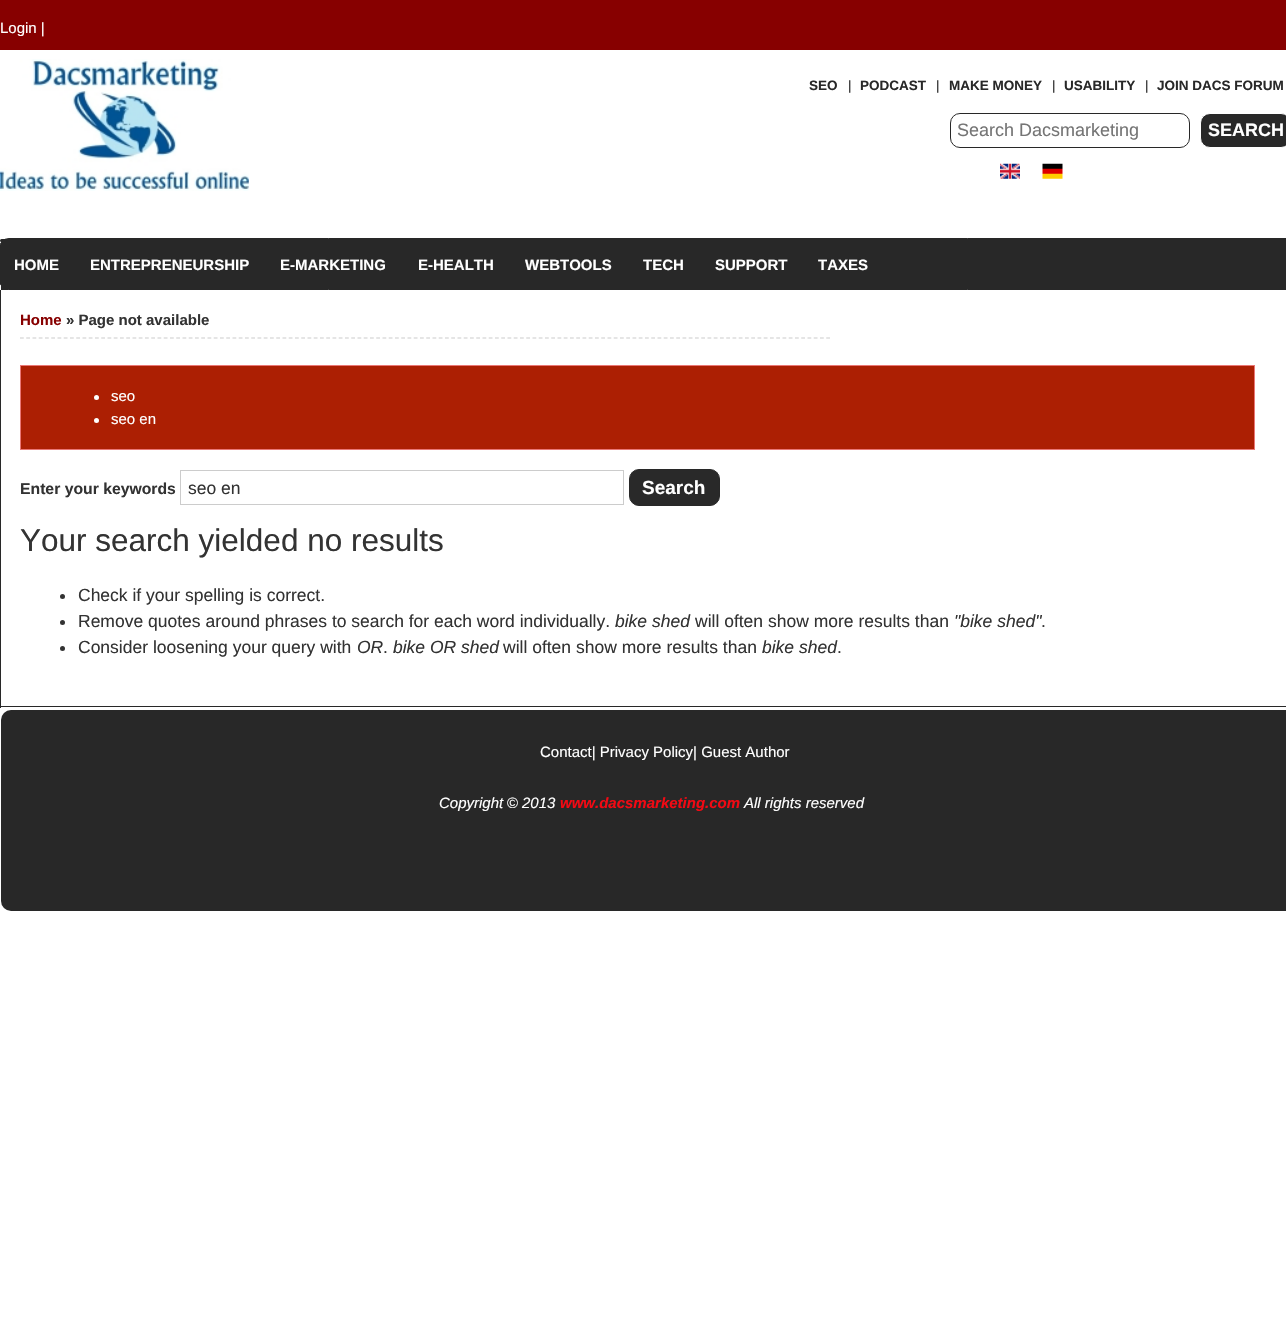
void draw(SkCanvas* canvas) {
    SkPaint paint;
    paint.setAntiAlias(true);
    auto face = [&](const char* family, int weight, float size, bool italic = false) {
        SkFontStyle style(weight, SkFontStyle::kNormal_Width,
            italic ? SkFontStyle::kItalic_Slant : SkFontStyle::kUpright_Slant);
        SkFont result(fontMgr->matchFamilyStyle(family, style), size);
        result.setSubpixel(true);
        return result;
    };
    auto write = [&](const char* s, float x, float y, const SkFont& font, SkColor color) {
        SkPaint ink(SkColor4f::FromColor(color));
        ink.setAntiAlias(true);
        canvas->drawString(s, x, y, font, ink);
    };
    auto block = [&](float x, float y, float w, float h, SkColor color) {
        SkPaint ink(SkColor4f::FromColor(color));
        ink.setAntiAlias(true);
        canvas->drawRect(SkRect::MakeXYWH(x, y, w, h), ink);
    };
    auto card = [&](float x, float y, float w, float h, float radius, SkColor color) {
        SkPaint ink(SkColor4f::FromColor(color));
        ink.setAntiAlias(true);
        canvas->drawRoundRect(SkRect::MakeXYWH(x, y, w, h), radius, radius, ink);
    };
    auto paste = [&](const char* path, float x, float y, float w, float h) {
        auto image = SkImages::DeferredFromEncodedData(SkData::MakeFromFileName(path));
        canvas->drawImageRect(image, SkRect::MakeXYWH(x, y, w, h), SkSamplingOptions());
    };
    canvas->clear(SK_ColorWHITE);
    block(0, 0, 1286, 50, SkColorSetRGB(135, 0, 0));
    auto kFont1 = face("Liberation Sans", 400, 15);
    write("Login |", 0, 33, kFont1, SK_ColorWHITE);
    paste("pic1.png", 0, 59, 249, 132);
    auto kFont2 = face("Liberation Sans", 700, 13.5f);
    write("SEO", 809, 90, kFont2, SkColorSetRGB(40, 40, 40));
    auto kFont3 = face("Liberation Sans", 400, 13.5f);
    write("|", 848, 90, kFont3, SkColorSetRGB(40, 40, 40));
    write("PODCAST", 860, 90, kFont2, SkColorSetRGB(40, 40, 40));
    write("|", 936, 90, kFont3, SkColorSetRGB(40, 40, 40));
    write("MAKE MONEY", 949, 90, kFont2, SkColorSetRGB(40, 40, 40));
    write("|", 1052, 90, kFont3, SkColorSetRGB(40, 40, 40));
    write("USABILITY", 1064, 90, kFont2, SkColorSetRGB(40, 40, 40));
    write("|", 1145, 90, kFont3, SkColorSetRGB(40, 40, 40));
    write("JOIN DACS FORUM", 1157, 90, kFont2, SkColorSetRGB(40, 40, 40));
    paint.setStyle(SkPaint::kStroke_Style);
    paint.setStrokeWidth(1);
    paint.setColor(SkColorSetRGB(40, 40, 40));
    canvas->drawRoundRect(SkRect::MakeXYWH(950.5f, 113.5f, 239, 34), 9.5f, 9.5f, paint);
    auto kFont4 = face("Liberation Sans", 400, 18);
    write("Search Dacsmarketing", 957, 136, kFont4, SkColorSetRGB(117, 117, 117));
    paint.setStyle(SkPaint::kFill_Style);
    canvas->drawRoundRect(SkRect::MakeXYWH(1200.5f, 113.5f, 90, 34), 9.5f, 9.5f, paint);
    paint.setStyle(SkPaint::kStroke_Style);
    paint.setColor(SK_ColorWHITE);
    canvas->drawRoundRect(SkRect::MakeXYWH(1200.5f, 113.5f, 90, 34), 9.5f, 9.5f, paint);
    auto kFont5 = face("Liberation Sans", 700, 18);
    write("SEARCH", 1208, 136, kFont5, SK_ColorWHITE);
    paste("pic2.png", 1000, 163, 20, 16);
    paste("pic3.png", 1042, 163, 21, 16);
    paint.setStyle(SkPaint::kFill_Style);
    paint.setColor(SkColorSetRGB(40, 40, 40));
    canvas->drawRoundRect(SkRect::MakeXYWH(-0.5f, 238.5f, 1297, 51), 9.5f, 9.5f, paint);
    paint.setStyle(SkPaint::kStroke_Style);
    canvas->drawRoundRect(SkRect::MakeXYWH(-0.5f, 238.5f, 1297, 51), 9.5f, 9.5f, paint);
    card(0, 239, 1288, 3, 1.5f, SkColorSetRGB(40, 40, 40));
    block(1, 286, 7, 4, SkColorSetRGB(40, 40, 40));
    auto kFont6 = face("Liberation Sans", 700, 15);
    write("HOME", 14, 270, kFont6, SK_ColorWHITE);
    write("ENTREPRENEURSHIP", 90, 270, kFont6, SK_ColorWHITE);
    write("E-MARKETING", 280, 270, kFont6, SK_ColorWHITE);
    write("E-HEALTH", 418, 270, kFont6, SK_ColorWHITE);
    write("WEBTOOLS", 525, 270, kFont6, SK_ColorWHITE);
    write("TECH", 643, 270, kFont6, SK_ColorWHITE);
    write("SUPPORT", 715, 270, kFont6, SK_ColorWHITE);
    write("TAXES", 818, 270, kFont6, SK_ColorWHITE);
    block(0, 706, 1286, 1, SkColorSetRGB(40, 40, 40));
    block(0, 290, 1, 418, SkColorSetRGB(40, 40, 40));
    paint.setStrokeWidth(1.2f);
    paint.setColor(SkColorSetRGB(204, 204, 204));
    paint.setPathEffect(SkDashPathEffect::Make({{3.75f, 2.5f}}, 0));
    canvas->drawPath(SkPathBuilder().moveTo(20, 338).lineTo(830, 338).detach(), paint);
    paint.setPathEffect(nullptr);
    write("Home", 20, 325, kFont6, SkColorSetRGB(135, 0, 0));
    write("» Page not available", 66, 325, kFont6, SkColorSetRGB(51, 51, 51));
    paint.setStyle(SkPaint::kFill_Style);
    paint.setColor(SkColorSetRGB(172, 31, 3));
    canvas->drawRect(SkRect::MakeXYWH(20.5f, 365.5f, 1234, 84), paint);
    paint.setStyle(SkPaint::kStroke_Style);
    paint.setStrokeWidth(1);
    paint.setColor(SkColorSetRGB(234, 119, 117));
    canvas->drawRect(SkRect::MakeXYWH(20.5f, 365.5f, 1234, 84), paint);
    paint.setStyle(SkPaint::kFill_Style);
    paint.setColor(SK_ColorWHITE);
    canvas->drawCircle(96.5f, 397.5f, 2.5f, paint);
    write("seo", 111, 401, kFont1, SK_ColorWHITE);
    canvas->drawCircle(96.5f, 420.5f, 2.5f, paint);
    write("seo en", 111, 424, kFont1, SK_ColorWHITE);
    auto kFont7 = face("Liberation Sans", 700, 15.75f);
    write("Enter your keywords", 20, 494, kFont7, SkColorSetRGB(51, 51, 51));
    paint.setStyle(SkPaint::kStroke_Style);
    paint.setColor(SkColorSetRGB(204, 204, 204));
    canvas->drawRect(SkRect::MakeXYWH(180.5f, 470.5f, 443, 34), paint);
    auto kFont8 = face("Liberation Sans", 400, 17.5f);
    write("seo en", 188, 494, kFont8, SkColorSetRGB(51, 51, 51));
    paint.setStyle(SkPaint::kFill_Style);
    paint.setColor(SkColorSetRGB(41, 41, 41));
    canvas->drawRoundRect(SkRect::MakeXYWH(629.5f, 469.5f, 90, 36), 9.5f, 9.5f, paint);
    paint.setStyle(SkPaint::kStroke_Style);
    paint.setColor(SkColorSetRGB(40, 40, 40));
    canvas->drawRoundRect(SkRect::MakeXYWH(629.5f, 469.5f, 90, 36), 9.5f, 9.5f, paint);
    auto kFont9 = face("Liberation Sans", 700, 19);
    write("Search", 642, 494, kFont9, SK_ColorWHITE);
    auto kFont10 = face("Liberation Sans", 400, 31.5f);
    write("Your search yielded no results", 20, 551, kFont10, SkColorSetRGB(51, 51, 51));
    paint.setStyle(SkPaint::kFill_Style);
    paint.setColor(SkColorSetRGB(51, 51, 51));
    canvas->drawCircle(62.5f, 596.5f, 2.5f, paint);
    write("Check if your spelling is correct.", 78, 601, kFont8, SkColorSetRGB(51, 51, 51));
    canvas->drawCircle(62.5f, 622.5f, 2.5f, paint);
    write("Remove quotes around phrases to search for each word individually.", 78, 627, kFont8, SkColorSetRGB(51, 51, 51));
    auto kFont11 = face("Liberation Sans", 400, 17.5f, true);
    write("bike shed", 615, 627, kFont11, SkColorSetRGB(51, 51, 51));
    write("will often show more results than", 695, 627, kFont8, SkColorSetRGB(51, 51, 51));
    write("\"bike shed\"", 954, 627, kFont11, SkColorSetRGB(51, 51, 51));
    write(".", 1041, 627, kFont8, SkColorSetRGB(51, 51, 51));
    canvas->drawCircle(62.5f, 648.5f, 2.5f, paint);
    write("Consider loosening your query with", 78, 653, kFont8, SkColorSetRGB(51, 51, 51));
    write("OR", 357, 653, kFont11, SkColorSetRGB(51, 51, 51));
    write("bike OR shed", 393, 653, kFont11, SkColorSetRGB(51, 51, 51));
    write("will often show more results than", 503, 653, kFont8, SkColorSetRGB(51, 51, 51));
    write("bike shed", 762, 653, kFont11, SkColorSetRGB(51, 51, 51));
    write(".", 383, 653, kFont8, SkColorSetRGB(51, 51, 51));
    write(".", 837, 653, kFont8, SkColorSetRGB(51, 51, 51));
    card(1, 710, 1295, 201, 10, SkColorSetRGB(40, 40, 40));
    write("Contact| Privacy Policy| Guest Author", 540, 757, kFont1, SK_ColorWHITE);
    auto kFont12 = face("Liberation Sans", 400, 15, true);
    write("Copyright", 439, 808, kFont12, SK_ColorWHITE);
    write("©", 507, 808, kFont1, SK_ColorWHITE);
    write("2013", 522, 808, kFont12, SK_ColorWHITE);
    auto kFont13 = face("Liberation Sans", 700, 15, true);
    write("www.dacsmarketing.com", 560, 808, kFont13, SkColorSetRGB(243, 9, 19));
    write("All rights reserved", 744, 808, kFont12, SK_ColorWHITE);
}
